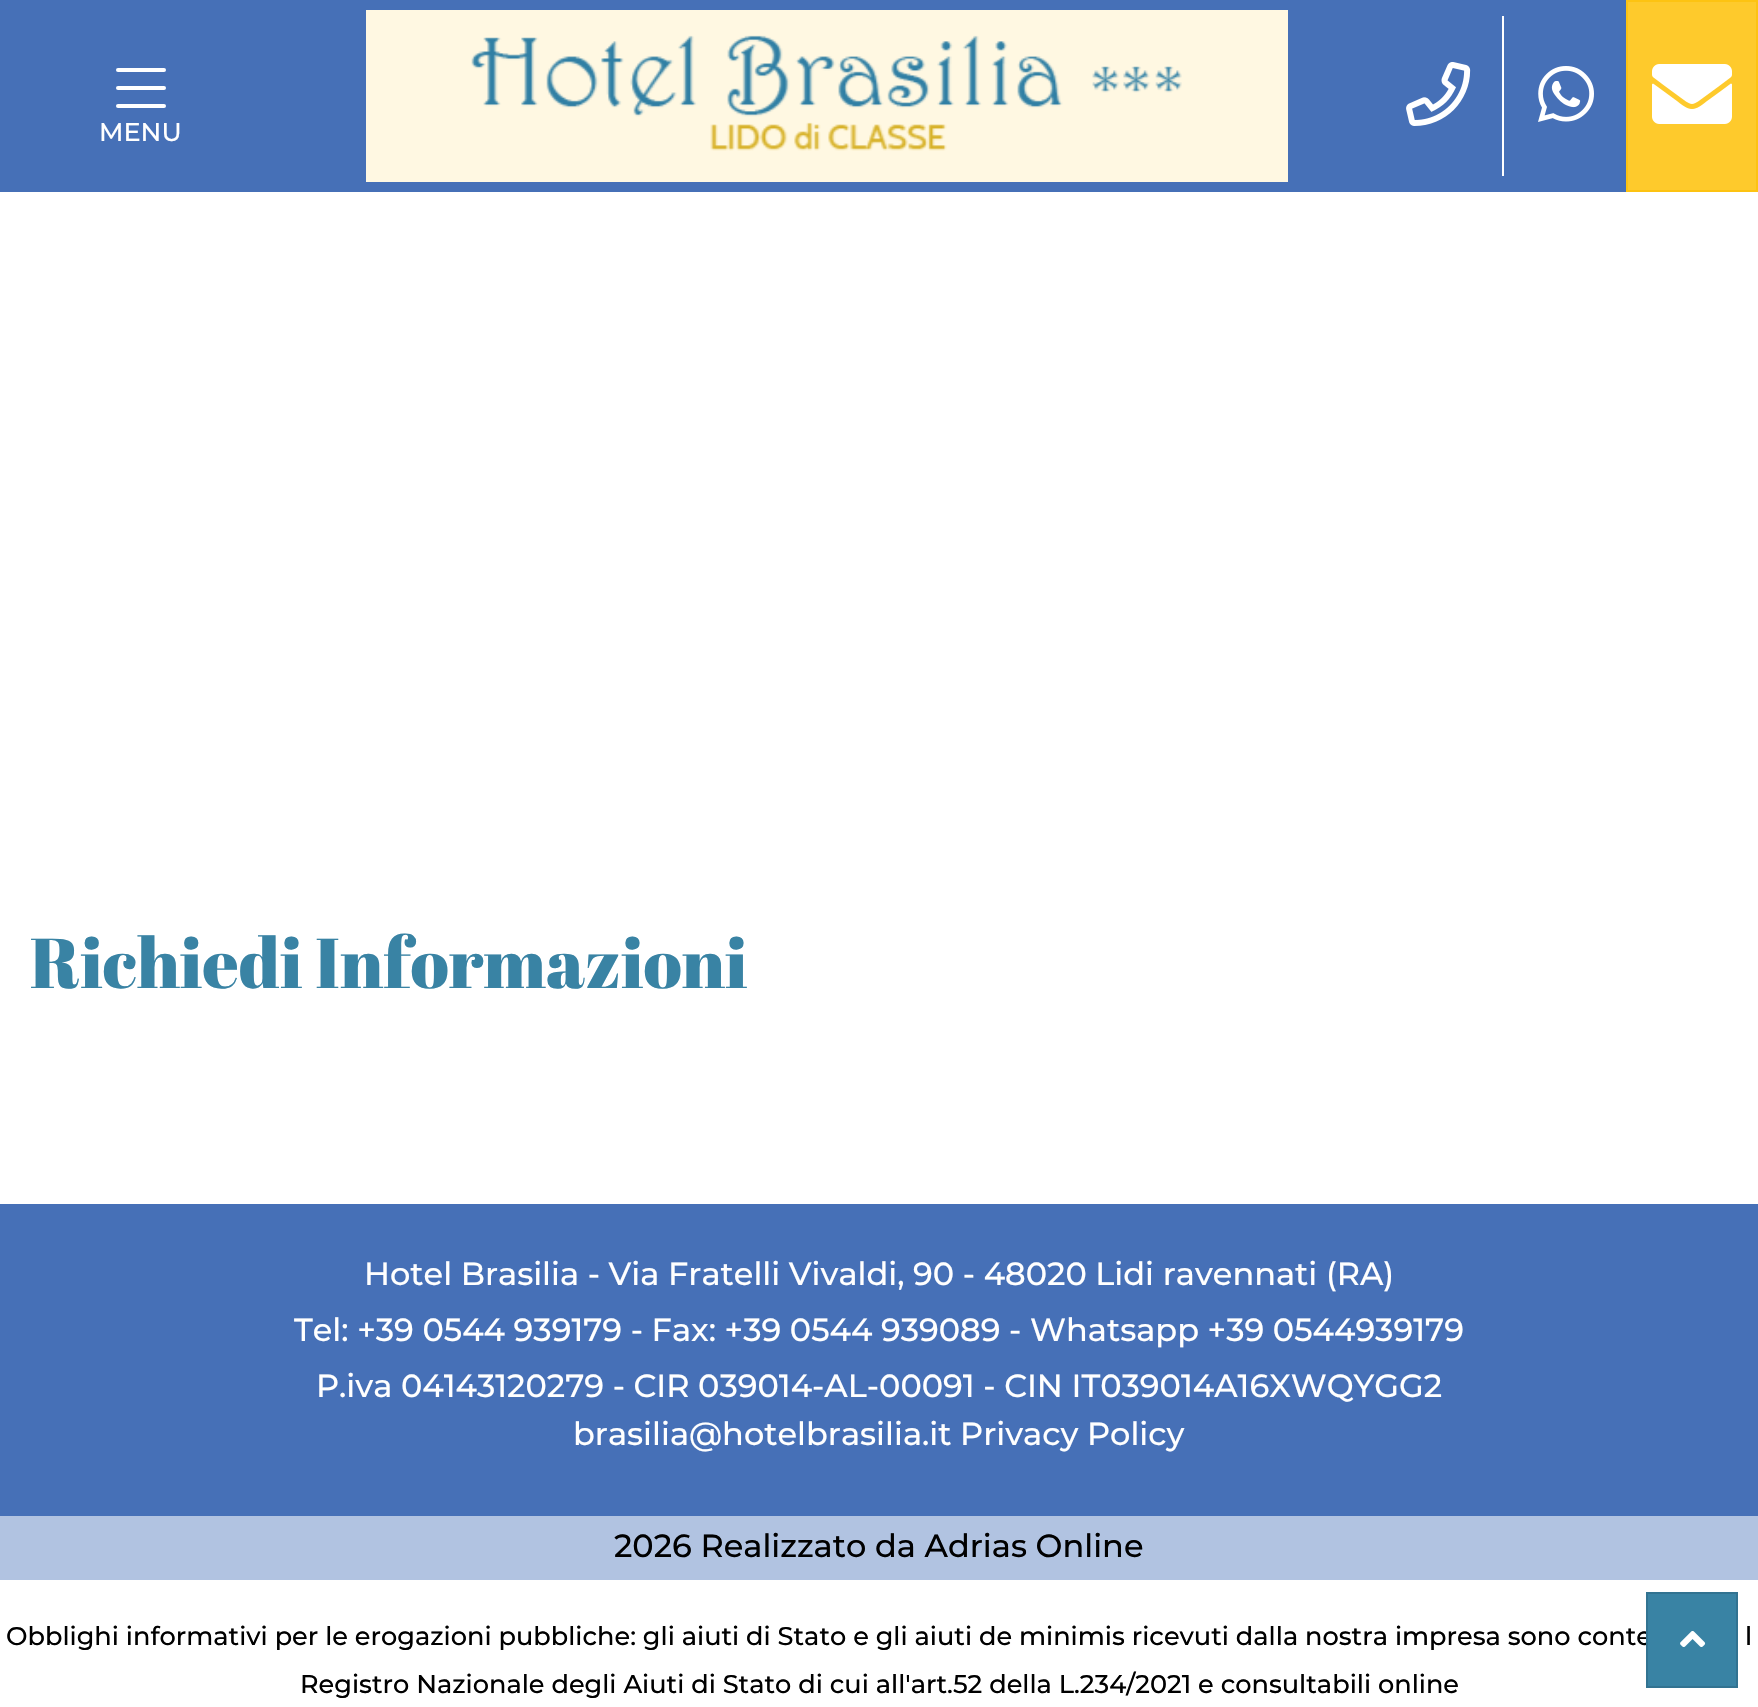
void draw(SkCanvas* canvas) {
    SkPaint paint;
    paint.setAntiAlias(true);
    auto face = [&](const char* family, int weight, float size, bool italic = false) {
        SkFontStyle style(weight, SkFontStyle::kNormal_Width,
            italic ? SkFontStyle::kItalic_Slant : SkFontStyle::kUpright_Slant);
        SkFont result(fontMgr->matchFamilyStyle(family, style), size);
        result.setSubpixel(true);
        return result;
    };
    auto write = [&](const char* s, float x, float y, const SkFont& font, SkColor color) {
        SkPaint ink(SkColor4f::FromColor(color));
        ink.setAntiAlias(true);
        canvas->drawString(s, x, y, font, ink);
    };
    auto block = [&](float x, float y, float w, float h, SkColor color) {
        SkPaint ink(SkColor4f::FromColor(color));
        ink.setAntiAlias(true);
        canvas->drawRect(SkRect::MakeXYWH(x, y, w, h), ink);
    };
    auto card = [&](float x, float y, float w, float h, float radius, SkColor color) {
        SkPaint ink(SkColor4f::FromColor(color));
        ink.setAntiAlias(true);
        canvas->drawRoundRect(SkRect::MakeXYWH(x, y, w, h), radius, radius, ink);
    };
    auto paste = [&](const char* path, float x, float y, float w, float h) {
        auto image = SkImages::DeferredFromEncodedData(SkData::MakeFromFileName(path));
        canvas->drawImageRect(image, SkRect::MakeXYWH(x, y, w, h), SkSamplingOptions());
    };
    canvas->clear(SK_ColorWHITE);
    block(0, 0, 1626, 192, SkColorSetRGB(70, 112, 183));
    block(366, 10, 922, 172, SkColorSetRGB(255, 248, 226));
    paste("pic1.png", 471, 35, 711, 116);
    paste("pic2.png", 1406, 62, 65, 64);
    block(1502, 16, 2, 160, SK_ColorWHITE);
    paste("pic3.png", 1538, 66, 56, 56);
    paint.setColor(SkColorSetRGB(254, 202, 44));
    canvas->drawRect(SkRect::MakeXYWH(1627, 1, 130, 190), paint);
    paint.setStyle(SkPaint::kStroke_Style);
    paint.setStrokeWidth(2);
    paint.setColor(SkColorSetRGB(253, 195, 18));
    canvas->drawRect(SkRect::MakeXYWH(1627, 1, 130, 190), paint);
    paste("pic4.png", 1652, 64, 80, 60);
    card(116, 68, 50, 4, 2, SK_ColorWHITE);
    card(116, 86, 50, 4, 2, SK_ColorWHITE);
    card(116, 104, 50, 4, 2, SK_ColorWHITE);
    auto kFont1 = face("Montserrat", 500, 25.6f);
    write("MENU", 99, 141, kFont1, SK_ColorWHITE);
    auto kFont2 = face("Abril Fatface", 400, 70.4f);
    write("Richiedi Informazioni", 30, 988, kFont2, SkColorSetRGB(57, 131, 164));
    block(0, 1204, 1758, 312, SkColorSetRGB(70, 112, 183));
    auto kFont3 = face("Montserrat", 500, 32);
    write("Hotel Brasilia - Via Fratelli Vivaldi, 90 - 48020 Lidi ravennati (RA)", 364, 1285, kFont3, SK_ColorWHITE);
    write("Tel: +39 0544 939179 - Fax: +39 0544 939089 - Whatsapp +39 0544939179", 294, 1341, kFont3, SK_ColorWHITE);
    write("P.iva 04143120279 - CIR 039014-AL-00091 - CIN IT039014A16XWQYGG2", 316, 1397, kFont3, SK_ColorWHITE);
    write("brasilia@hotelbrasilia.it Privacy Policy", 573, 1445, kFont3, SK_ColorWHITE);
    block(0, 1516, 1758, 64, SkColorSetRGB(177, 195, 225));
    write("2026 Realizzato da Adrias Online", 614, 1557, kFont3, SK_ColorBLACK);
    write("Obblighi informativi per le erogazioni pubbliche: gli aiuti di Stato e gli aiuti de minimis ricevuti dalla nostra impresa sono conte", 6, 1645, kFont1, SK_ColorBLACK);
    paint.setStyle(SkPaint::kFill_Style);
    paint.setColor(SkColorSetRGB(57, 131, 164));
    canvas->drawRect(SkRect::MakeXYWH(1647, 1593, 90, 94), paint);
    paint.setStyle(SkPaint::kStroke_Style);
    paint.setColor(SkColorSetRGB(50, 115, 145));
    canvas->drawRect(SkRect::MakeXYWH(1647, 1593, 90, 94), paint);
    paste("pic5.png", 1680, 1631, 26, 16);
    write("l", 1745, 1645, kFont1, SK_ColorBLACK);
    write("Registro Nazionale degli Aiuti di Stato di cui all'art.52 della L.234/2021 e consultabili online", 300, 1693, kFont1, SK_ColorBLACK);
}
